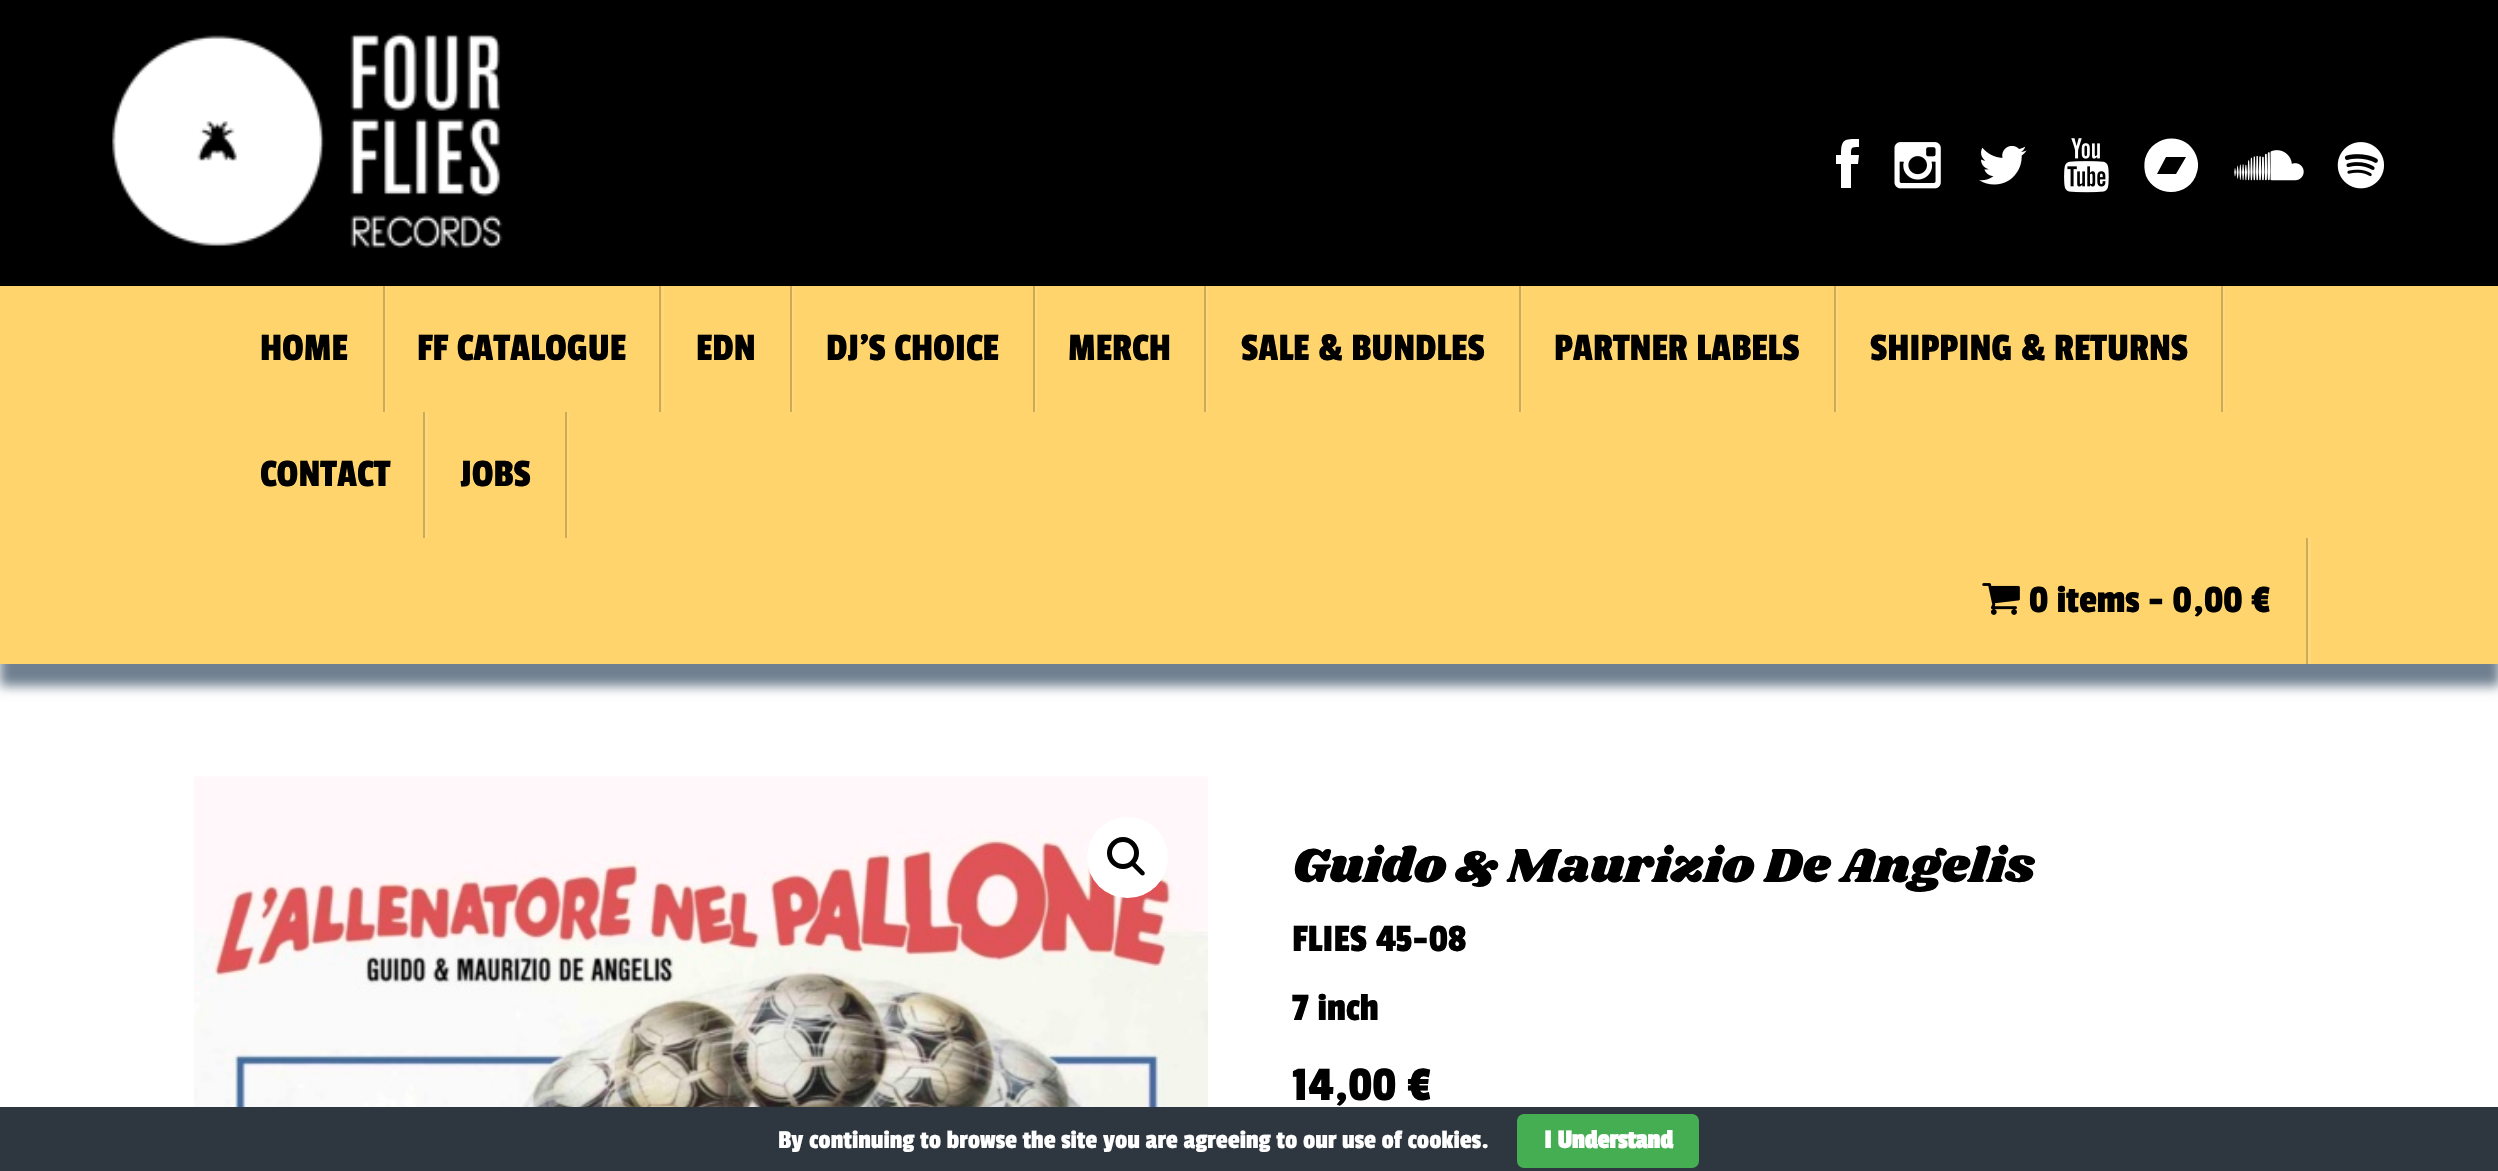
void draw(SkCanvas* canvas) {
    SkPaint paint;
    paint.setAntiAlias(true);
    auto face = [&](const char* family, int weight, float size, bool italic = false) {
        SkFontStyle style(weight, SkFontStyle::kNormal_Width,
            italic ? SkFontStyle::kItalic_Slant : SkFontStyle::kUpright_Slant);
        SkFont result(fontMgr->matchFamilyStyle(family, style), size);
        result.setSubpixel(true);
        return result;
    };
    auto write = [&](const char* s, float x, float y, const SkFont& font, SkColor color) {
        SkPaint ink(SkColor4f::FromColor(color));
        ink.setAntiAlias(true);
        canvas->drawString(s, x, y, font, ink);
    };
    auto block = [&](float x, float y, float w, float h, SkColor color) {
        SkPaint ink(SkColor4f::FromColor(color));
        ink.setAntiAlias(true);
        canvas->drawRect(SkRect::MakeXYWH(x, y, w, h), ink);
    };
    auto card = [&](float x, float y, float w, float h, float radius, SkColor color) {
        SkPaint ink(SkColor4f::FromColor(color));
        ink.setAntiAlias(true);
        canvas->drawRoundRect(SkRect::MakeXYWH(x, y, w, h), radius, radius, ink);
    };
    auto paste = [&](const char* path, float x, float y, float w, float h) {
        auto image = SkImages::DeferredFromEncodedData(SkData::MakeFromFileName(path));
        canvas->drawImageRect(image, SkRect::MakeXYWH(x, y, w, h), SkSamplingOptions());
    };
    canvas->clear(SK_ColorWHITE);
    block(0, 0, 2498, 286, SK_ColorBLACK);
    paste("pic1.png", 112, 33, 391, 215);
    paint.setColor(SK_ColorWHITE);
    canvas->drawPath(SkPathBuilder().moveTo(1851, 155).lineTo(1859, 155).lineTo(1858, 164).lineTo(1851, 164).lineTo(1851, 188).lineTo(1841, 188).lineTo(1841, 164).lineTo(1836, 164).lineTo(1836, 155).lineTo(1841, 155).cubicTo(1841, 139, 1844, 139, 1859, 139).lineTo(1859, 147).cubicTo(1851, 147, 1851, 147, 1851, 155).close().detach(), paint);
    paste("pic2.png", 1894, 142, 47, 47);
    paste("pic3.png", 1979, 145, 48, 40);
    paste("pic4.png", 2064, 138, 45, 55);
    canvas->drawPath(SkPathBuilder().moveTo(2176, 174).lineTo(2186, 157).lineTo(2166, 157).lineTo(2157, 174).close().moveTo(2196, 155).cubicTo(2198, 160, 2199, 166, 2197, 172).cubicTo(2191, 197, 2156, 199, 2146, 176).cubicTo(2144, 170, 2144, 164, 2145, 159).cubicTo(2152, 134, 2186, 131, 2196, 155).close().detach(), paint);
    paste("pic5.png", 2234, 150, 70, 31);
    paste("pic6.png", 2337, 142, 47, 47);
    paint.setColor(SkColorSetRGB(112, 128, 144));
    paint.setMaskFilter(SkMaskFilter::MakeBlur(kNormal_SkBlurStyle, 5.5f));
    canvas->drawRect(SkRect::MakeXYWH(0, 308, 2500, 378), paint);
    paint.setMaskFilter(nullptr);
    block(0, 286, 2498, 378, SkColorSetRGB(255, 212, 108));
    paint.setColor(SkColorSetRGB(255, 216, 123));
    canvas->drawPath(SkPathBuilder().moveTo(230, 412).lineTo(387, 412).lineTo(387, 286).lineTo(385, 286).lineTo(385, 412).close().detach(), paint);
    block(383, 286, 2, 126, SkColorSetRGB(204, 170, 86));
    auto kFont1 = face("Passion One", 400, 40.5f);
    write("HOME", 260, 360, kFont1, SK_ColorBLACK);
    canvas->drawPath(SkPathBuilder().moveTo(387, 412).lineTo(664, 412).lineTo(664, 286).lineTo(662, 286).lineTo(662, 412).close().detach(), paint);
    block(659, 286, 2, 126, SkColorSetRGB(204, 170, 86));
    write("FF CATALOGUE", 417, 360, kFont1, SK_ColorBLACK);
    canvas->drawPath(SkPathBuilder().moveTo(664, 412).lineTo(794, 412).lineTo(794, 286).lineTo(792, 286).lineTo(792, 412).close().detach(), paint);
    block(790, 286, 2, 126, SkColorSetRGB(204, 170, 86));
    write("EDN", 696, 360, kFont1, SK_ColorBLACK);
    canvas->drawPath(SkPathBuilder().moveTo(794, 412).lineTo(1037, 412).lineTo(1037, 286).lineTo(1035, 286).lineTo(1035, 412).close().detach(), paint);
    block(1033, 286, 2, 126, SkColorSetRGB(204, 170, 86));
    write("DJ’S CHOICE", 826, 360, kFont1, SK_ColorBLACK);
    canvas->drawPath(SkPathBuilder().moveTo(1037, 412).lineTo(1208, 412).lineTo(1208, 286).lineTo(1206, 286).lineTo(1206, 412).close().detach(), paint);
    block(1204, 286, 2, 126, SkColorSetRGB(204, 170, 86));
    write("MERCH", 1068, 360, kFont1, SK_ColorBLACK);
    canvas->drawPath(SkPathBuilder().moveTo(1208, 412).lineTo(1523, 412).lineTo(1523, 286).lineTo(1521, 286).lineTo(1521, 412).close().detach(), paint);
    block(1519, 286, 2, 126, SkColorSetRGB(204, 170, 86));
    write("SALE & BUNDLES", 1241, 360, kFont1, SK_ColorBLACK);
    canvas->drawPath(SkPathBuilder().moveTo(1523, 412).lineTo(1838, 412).lineTo(1838, 286).lineTo(1836, 286).lineTo(1836, 412).close().detach(), paint);
    block(1834, 286, 2, 126, SkColorSetRGB(204, 170, 86));
    write("PARTNER LABELS", 1554, 360, kFont1, SK_ColorBLACK);
    canvas->drawPath(SkPathBuilder().moveTo(1838, 412).lineTo(2225, 412).lineTo(2225, 286).lineTo(2223, 286).lineTo(2223, 412).close().detach(), paint);
    block(2221, 286, 2, 126, SkColorSetRGB(204, 170, 86));
    write("SHIPPING & RETURNS", 1870, 360, kFont1, SK_ColorBLACK);
    canvas->drawPath(SkPathBuilder().moveTo(230, 538).lineTo(428, 538).lineTo(428, 412).lineTo(425, 412).lineTo(425, 538).close().detach(), paint);
    block(423, 412, 2, 126, SkColorSetRGB(204, 170, 86));
    write("CONTACT", 260, 486, kFont1, SK_ColorBLACK);
    canvas->drawPath(SkPathBuilder().moveTo(428, 538).lineTo(569, 538).lineTo(569, 412).lineTo(567, 412).lineTo(567, 538).close().detach(), paint);
    block(565, 412, 2, 126, SkColorSetRGB(204, 170, 86));
    write("JOBS", 460, 486, kFont1, SK_ColorBLACK);
    canvas->drawPath(SkPathBuilder().moveTo(1951, 664).lineTo(2311, 664).lineTo(2311, 538).lineTo(2308, 538).lineTo(2308, 664).close().detach(), paint);
    block(2306, 538, 2, 126, SkColorSetRGB(204, 170, 86));
    paste("pic7.png", 1982, 583, 38, 32);
    write("0 items - 0,00 €", 2029, 612, kFont1, SK_ColorBLACK);
    paste("pic8.png", 194, 776, 1014, 331);
    paint.setColor(SK_ColorWHITE);
    canvas->drawCircle(1127.5f, 857.5f, 40.5f, paint);
    paint.setStyle(SkPaint::kStroke_Style);
    paint.setStrokeWidth(5);
    paint.setColor(SK_ColorBLACK);
    canvas->drawCircle(1123, 853, 13.5f, paint);
    paint.setStyle(SkPaint::kFill_Style);
    canvas->drawPath(SkPathBuilder().moveTo(1131.5f, 862).cubicTo(1132.5f, 861.5f, 1133.5f, 861.5f, 1134.5f, 862).lineTo(1144, 871.5f).cubicTo(1145, 872.5f, 1145, 874, 1144, 875).cubicTo(1143.5f, 875.5f, 1142, 875.5f, 1141, 875).lineTo(1131.5f, 865.5f).cubicTo(1130.5f, 864.5f, 1130.5f, 863, 1131.5f, 862).close().detach(), paint);
    auto kFont2 = face("Shrikhand", 400, 49.5f);
    write("Guido & Maurizio De Angelis", 1292, 882, kFont2, SK_ColorBLACK);
    write("FLIES 45-08", 1292, 951, kFont1, SK_ColorBLACK);
    write("7 inch", 1292, 1020, kFont1, SK_ColorBLACK);
    auto kFont3 = face("Passion One", 400, 50.5f);
    write("14,00 €", 1292, 1100, kFont3, SK_ColorBLACK);
    block(0, 1107, 2498, 64, SkColorSetRGB(46, 54, 63));
    auto kFont4 = face("Passion One", 400, 27);
    write("By continuing to browse the site you are agreeing to our use of cookies.", 778, 1148, kFont4, SK_ColorWHITE);
    card(1517, 1114, 182, 54, 7, SkColorSetRGB(69, 174, 82));
    auto kFont5 = face("Passion One", 700, 27);
    write("I Understand", 1544, 1148, kFont5, SK_ColorWHITE);
}
